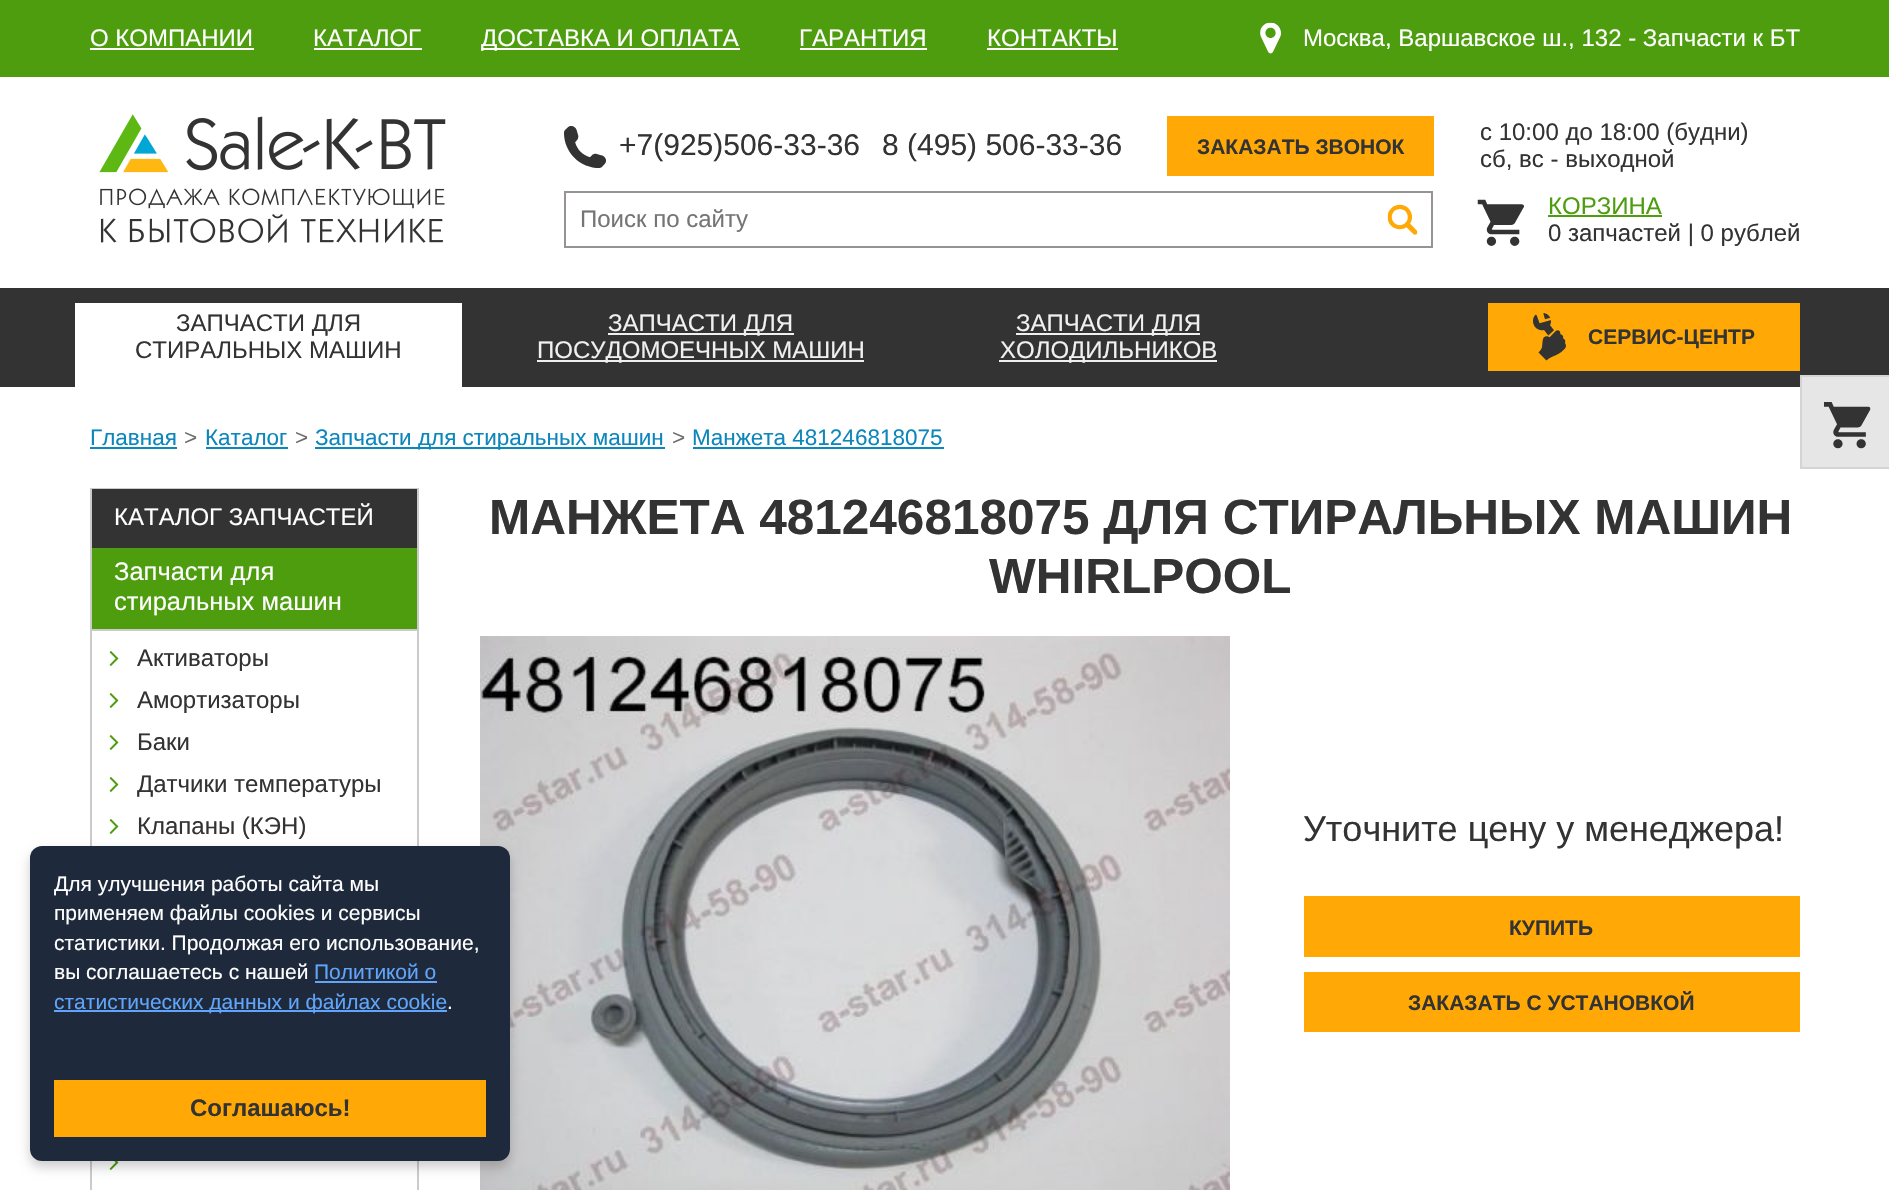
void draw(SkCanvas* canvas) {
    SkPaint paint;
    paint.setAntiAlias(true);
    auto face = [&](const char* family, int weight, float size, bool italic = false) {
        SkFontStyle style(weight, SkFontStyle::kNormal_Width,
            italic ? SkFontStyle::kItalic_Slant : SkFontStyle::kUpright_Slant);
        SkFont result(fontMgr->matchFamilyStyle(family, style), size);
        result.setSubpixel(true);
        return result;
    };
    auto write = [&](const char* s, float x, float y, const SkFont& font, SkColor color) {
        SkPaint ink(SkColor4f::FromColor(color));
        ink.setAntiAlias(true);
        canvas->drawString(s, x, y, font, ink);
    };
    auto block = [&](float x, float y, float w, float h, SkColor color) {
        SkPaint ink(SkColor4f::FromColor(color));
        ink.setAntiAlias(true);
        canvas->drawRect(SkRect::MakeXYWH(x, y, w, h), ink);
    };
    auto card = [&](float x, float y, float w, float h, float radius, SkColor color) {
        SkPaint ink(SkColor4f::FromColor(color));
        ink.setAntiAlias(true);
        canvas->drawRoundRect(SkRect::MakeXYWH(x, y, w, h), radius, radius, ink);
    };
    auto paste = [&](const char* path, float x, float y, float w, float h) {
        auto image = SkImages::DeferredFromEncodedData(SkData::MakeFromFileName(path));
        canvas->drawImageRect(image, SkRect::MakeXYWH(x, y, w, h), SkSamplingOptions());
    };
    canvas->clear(SK_ColorWHITE);
    block(0, 0, 1889, 77, SkColorSetRGB(77, 157, 15));
    auto kFont1 = face("Liberation Sans", 400, 24);
    write("О КОМПАНИИ", 90, 46, kFont1, SK_ColorWHITE);
    block(90, 48, 164, 2, SK_ColorWHITE);
    write("КАТАЛОГ", 313, 46, kFont1, SK_ColorWHITE);
    block(314, 48, 108, 2, SK_ColorWHITE);
    block(482, 48, 258, 2, SK_ColorWHITE);
    write("ДОСТАВКА И ОПЛАТА", 481, 46, kFont1, SK_ColorWHITE);
    write("ГАРАНТИЯ", 799, 46, kFont1, SK_ColorWHITE);
    block(800, 48, 127, 2, SK_ColorWHITE);
    write("КОНТАКТЫ", 987, 46, kFont1, SK_ColorWHITE);
    block(987, 48, 131, 2, SK_ColorWHITE);
    paste("pic1.png", 1260, 22, 21, 32);
    write("Москва, Варшавское ш., 132 - Запчасти к БТ", 1303, 46, kFont1, SK_ColorWHITE);
    paste("pic2.png", 99, 114, 347, 129);
    paste("pic3.png", 564, 126, 42, 42);
    auto kFont2 = face("Liberation Sans", 400, 30);
    write("+7(925)506-33-36", 619, 155, kFont2, SkColorSetRGB(51, 51, 51));
    write("8 (495) 506-33-36", 882, 155, kFont2, SkColorSetRGB(51, 51, 51));
    block(1167, 116, 267, 60, SkColorSetRGB(255, 168, 6));
    auto kFont3 = face("Liberation Sans", 700, 21);
    write("ЗАКАЗАТЬ ЗВОНОК", 1197, 154, kFont3, SkColorSetRGB(51, 51, 51));
    write("с 10:00 до 18:00 (будни)", 1480, 140, kFont1, SkColorSetRGB(51, 51, 51));
    write("сб, вс - выходной", 1480, 167, kFont1, SkColorSetRGB(51, 51, 51));
    paint.setStyle(SkPaint::kStroke_Style);
    paint.setStrokeWidth(2);
    paint.setColor(SkColorSetRGB(151, 147, 149));
    canvas->drawRect(SkRect::MakeXYWH(565, 192, 867, 55), paint);
    write("Поиск по сайту", 580, 227, kFont1, SkColorSetRGB(117, 117, 117));
    paste("pic4.png", 1387, 204, 31, 31);
    paste("pic5.png", 1477, 199, 47, 47);
    write("КОРЗИНА", 1548, 214, kFont1, SkColorSetRGB(77, 157, 15));
    block(1548, 215, 114, 2, SkColorSetRGB(77, 157, 15));
    write("0 запчастей | 0 рублей", 1548, 241, kFont1, SkColorSetRGB(51, 51, 51));
    block(0, 288, 1889, 99, SkColorSetRGB(51, 51, 51));
    block(75, 303, 387, 84, SK_ColorWHITE);
    write("ЗАПЧАСТИ ДЛЯ", 176, 331, kFont1, SkColorSetRGB(51, 51, 51));
    write("СТИРАЛЬНЫХ МАШИН", 135, 358, kFont1, SkColorSetRGB(51, 51, 51));
    block(608, 333, 186, 2, SkColorSetRGB(240, 240, 240));
    write("ЗАПЧАСТИ ДЛЯ", 608, 331, kFont1, SkColorSetRGB(240, 240, 240));
    block(537, 360, 327, 2, SkColorSetRGB(240, 240, 240));
    write("ПОСУДОМОЕЧНЫХ МАШИН", 537, 358, kFont1, SkColorSetRGB(240, 240, 240));
    block(1016, 333, 184, 2, SkColorSetRGB(240, 240, 240));
    write("ЗАПЧАСТИ ДЛЯ", 1016, 331, kFont1, SkColorSetRGB(240, 240, 240));
    block(999, 360, 218, 2, SkColorSetRGB(240, 240, 240));
    write("ХОЛОДИЛЬНИКОВ", 1000, 358, kFont1, SkColorSetRGB(240, 240, 240));
    block(1488, 303, 312, 68, SkColorSetRGB(255, 168, 6));
    paste("pic6.png", 1533, 313, 33, 48);
    write("СЕРВИС-ЦЕНТР", 1588, 344, kFont3, SkColorSetRGB(51, 51, 51));
    auto kFont4 = face("Liberation Sans", 400, 22.5f);
    write("Главная", 90, 445, kFont4, SkColorSetRGB(13, 134, 187));
    block(90, 447, 87, 2, SkColorSetRGB(13, 134, 187));
    write(">", 184, 445, kFont4, SkColorSetRGB(108, 108, 108));
    write("Каталог", 205, 445, kFont4, SkColorSetRGB(13, 134, 187));
    block(206, 447, 82, 2, SkColorSetRGB(13, 134, 187));
    write(">", 295, 445, kFont4, SkColorSetRGB(108, 108, 108));
    block(315, 447, 350, 2, SkColorSetRGB(13, 134, 187));
    write("Запчасти для стиральных машин", 315, 445, kFont4, SkColorSetRGB(13, 134, 187));
    write(">", 672, 445, kFont4, SkColorSetRGB(108, 108, 108));
    write("Манжета 481246818075", 692, 445, kFont4, SkColorSetRGB(13, 134, 187));
    block(693, 447, 251, 2, SkColorSetRGB(13, 134, 187));
    block(1802, 377, 87, 90, SkColorSetRGB(230, 230, 230));
    block(1800, 375, 89, 2, SkColorSetRGB(212, 212, 212));
    block(1800, 467, 89, 2, SkColorSetRGB(212, 212, 212));
    block(1800, 375, 2, 93, SkColorSetRGB(212, 212, 212));
    paste("pic7.png", 1824, 402, 47, 47);
    block(90, 488, 329, 1, SkColorSetRGB(203, 203, 203));
    block(417, 488, 2, 702, SkColorSetRGB(203, 203, 203));
    block(90, 488, 2, 702, SkColorSetRGB(203, 203, 203));
    block(92, 489, 325, 59, SkColorSetRGB(51, 51, 51));
    write("КАТАЛОГ ЗАПЧАСТЕЙ", 114, 525, kFont1, SK_ColorWHITE);
    block(92, 548, 325, 81, SkColorSetRGB(77, 157, 15));
    block(92, 629, 325, 2, SkColorSetRGB(203, 203, 203));
    auto kFont5 = face("Liberation Sans", 400, 25.5f);
    write("Запчасти для", 114, 580, kFont5, SK_ColorWHITE);
    write("стиральных машин", 114, 610, kFont5, SK_ColorWHITE);
    paste("pic8.png", 109, 651, 10, 15);
    write("Активаторы", 137, 666, kFont1, SkColorSetRGB(51, 51, 51));
    paste("pic8.png", 109, 693, 10, 15);
    write("Амортизаторы", 137, 708, kFont1, SkColorSetRGB(51, 51, 51));
    paste("pic8.png", 109, 735, 10, 15);
    write("Баки", 137, 750, kFont1, SkColorSetRGB(51, 51, 51));
    paste("pic8.png", 109, 777, 10, 15);
    write("Датчики температуры", 137, 792, kFont1, SkColorSetRGB(51, 51, 51));
    paste("pic8.png", 109, 819, 10, 15);
    write("Клапаны (КЭН)", 137, 834, kFont1, SkColorSetRGB(51, 51, 51));
    paste("pic9.png", 109, 1161, 10, 9);
    auto kFont6 = face("Liberation Sans", 700, 49.5f);
    write("МАНЖЕТА 481246818075 ДЛЯ СТИРАЛЬНЫХ МАШИН", 489, 534, kFont6, SkColorSetRGB(51, 51, 51));
    write("WHIRLPOOL", 989, 593, kFont6, SkColorSetRGB(51, 51, 51));
    paste("pic10.png", 480, 636, 750, 554);
    auto kFont7 = face("Liberation Sans", 400, 36);
    write("Уточните цену у менеджера!", 1303, 841, kFont7, SkColorSetRGB(51, 51, 51));
    block(1304, 896, 496, 61, SkColorSetRGB(255, 168, 6));
    write("КУПИТЬ", 1509, 935, kFont3, SkColorSetRGB(51, 51, 51));
    block(1304, 972, 496, 60, SkColorSetRGB(255, 168, 6));
    write("ЗАКАЗАТЬ С УСТАНОВКОЙ", 1408, 1010, kFont3, SkColorSetRGB(51, 51, 51));
    paint.setStyle(SkPaint::kFill_Style);
    paint.setColor(SkColorSetARGB(51, 0, 0, 0));
    paint.setMaskFilter(SkMaskFilter::MakeBlur(kNormal_SkBlurStyle, 6));
    canvas->drawRoundRect(SkRect::MakeXYWH(30, 852, 480, 315), 12, 12, paint);
    paint.setMaskFilter(nullptr);
    card(30, 846, 480, 315, 12, SkColorSetRGB(30, 41, 59));
    auto kFont8 = face("Liberation Sans", 400, 21);
    write("Для улучшения работы сайта мы", 54, 891, kFont8, SK_ColorWHITE);
    write("применяем файлы cookies и сервисы", 54, 920, kFont8, SK_ColorWHITE);
    write("статистики. Продолжая его использование,", 54, 950, kFont8, SK_ColorWHITE);
    write("вы соглашаетесь с нашей", 54, 979, kFont8, SK_ColorWHITE);
    write("Политикой о", 314, 979, kFont8, SkColorSetRGB(96, 165, 250));
    block(315, 981, 122, 2, SkColorSetRGB(96, 165, 250));
    block(54, 1010, 393, 2, SkColorSetRGB(96, 165, 250));
    write("статистических данных и файлах cookie", 54, 1009, kFont8, SkColorSetRGB(96, 165, 250));
    write(".", 447, 1009, kFont8, SK_ColorWHITE);
    block(54, 1080, 432, 57, SkColorSetRGB(255, 168, 6));
    auto kFont9 = face("Liberation Sans", 700, 24);
    write("Соглашаюсь!", 190, 1116, kFont9, SkColorSetRGB(51, 51, 51));
}
